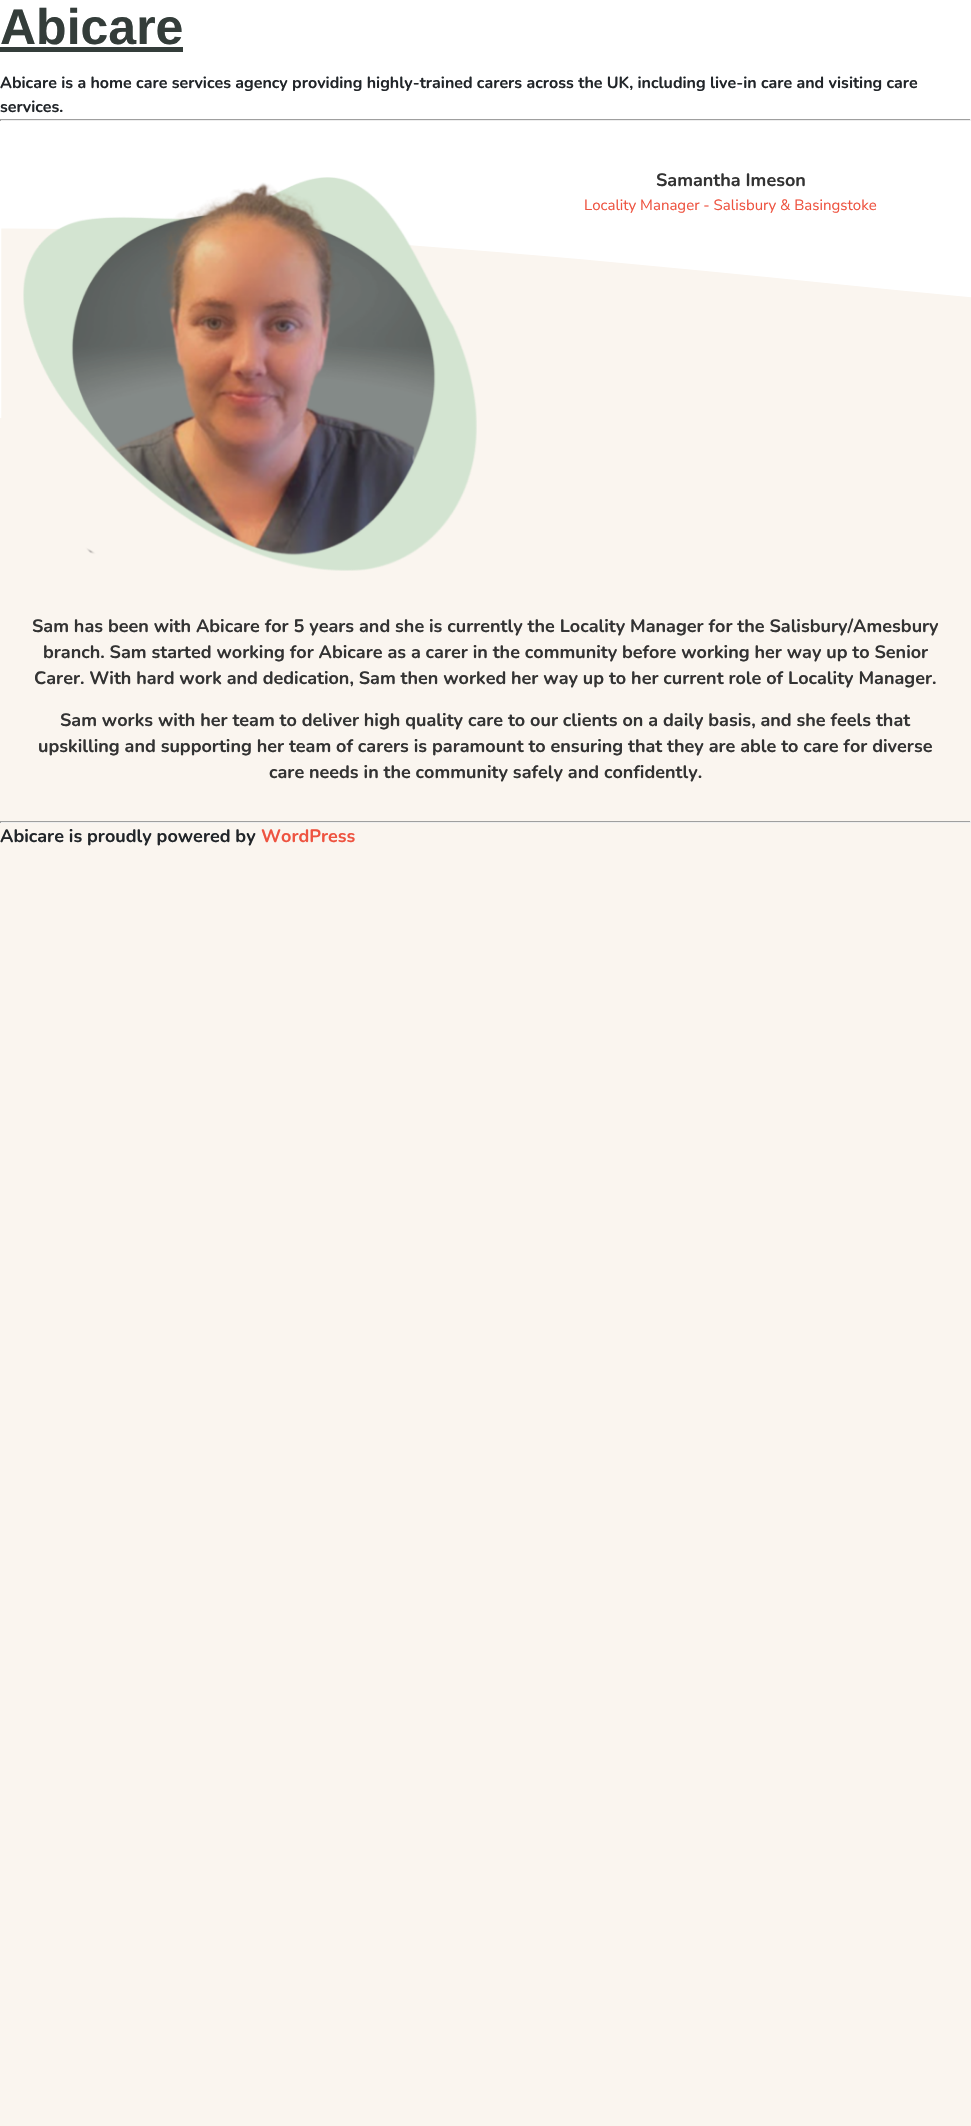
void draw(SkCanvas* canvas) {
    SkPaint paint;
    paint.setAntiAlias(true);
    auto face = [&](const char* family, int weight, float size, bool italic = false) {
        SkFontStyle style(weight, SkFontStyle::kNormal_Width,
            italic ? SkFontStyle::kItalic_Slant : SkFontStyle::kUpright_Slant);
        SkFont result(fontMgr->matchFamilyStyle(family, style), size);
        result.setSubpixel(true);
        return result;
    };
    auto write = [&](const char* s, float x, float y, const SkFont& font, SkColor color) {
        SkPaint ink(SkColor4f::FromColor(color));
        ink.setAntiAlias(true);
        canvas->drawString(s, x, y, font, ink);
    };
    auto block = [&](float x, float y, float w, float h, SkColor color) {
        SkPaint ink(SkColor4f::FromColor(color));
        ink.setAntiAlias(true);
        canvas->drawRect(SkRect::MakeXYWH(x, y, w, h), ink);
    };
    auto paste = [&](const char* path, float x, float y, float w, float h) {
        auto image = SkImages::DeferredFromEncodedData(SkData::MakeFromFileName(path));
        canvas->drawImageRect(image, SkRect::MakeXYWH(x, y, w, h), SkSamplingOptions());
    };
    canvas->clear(SK_ColorWHITE);
    paste("pic1.png", 0, 228, 971, 1898);
    auto kFont1 = face("Liberation Sans", 700, 50);
    write("Abicare", 0, 44, kFont1, SkColorSetRGB(52, 61, 58));
    block(0, 47, 183, 5, SkColorSetRGB(52, 61, 58));
    auto kFont2 = face("Nunito", 200, 16);
    write("Abicare is a home care services agency providing highly-trained carers across the UK, including live-in care and visiting care", 0, 88, kFont2, SkColorSetRGB(33, 37, 41));
    write("services.", 0, 112, kFont2, SkColorSetRGB(33, 37, 41));
    block(0, 119, 971, 1, SkColorSetRGB(159, 159, 159));
    block(970, 119, 1, 2, SkColorSetRGB(238, 238, 238));
    block(0, 120, 971, 1, SkColorSetRGB(238, 238, 238));
    block(0, 119, 1, 2, SkColorSetRGB(159, 159, 159));
    paste("pic2.png", 23, 177, 454, 394);
    auto kFont3 = face("Nunito", 200, 18);
    write("Samantha Imeson", 656, 186, kFont3, SkColorSetRGB(51, 51, 51));
    auto kFont4 = face("Nunito Sans", 200, 15);
    write("Locality Manager - Salisbury & Basingstoke", 584, 210, kFont4, SkColorSetRGB(238, 83, 64));
    write("Sam has been with Abicare for 5 years and she is currently the Locality Manager for the Salisbury/Amesbury", 32, 632, kFont3, SkColorSetRGB(51, 51, 51));
    write("branch. Sam started working for Abicare as a carer in the community before working her way up to Senior", 43, 658, kFont3, SkColorSetRGB(51, 51, 51));
    write("Carer. With hard work and dedication, Sam then worked her way up to her current role of Locality Manager.", 34, 684, kFont3, SkColorSetRGB(51, 51, 51));
    write("Sam works with her team to deliver high quality care to our clients on a daily basis, and she feels that", 60, 726, kFont3, SkColorSetRGB(51, 51, 51));
    write("upskilling and supporting her team of carers is paramount to ensuring that they are able to care for diverse", 38, 752, kFont3, SkColorSetRGB(51, 51, 51));
    write("care needs in the community safely and confidently.", 269, 778, kFont3, SkColorSetRGB(51, 51, 51));
    block(0, 821, 971, 1, SkColorSetRGB(159, 159, 159));
    block(970, 821, 1, 2, SkColorSetRGB(238, 238, 238));
    block(0, 822, 971, 1, SkColorSetRGB(238, 238, 238));
    block(0, 821, 1, 2, SkColorSetRGB(159, 159, 159));
    write("Abicare is proudly powered by", 0, 842, kFont3, SkColorSetRGB(33, 37, 41));
    write("WordPress", 261, 842, kFont3, SkColorSetRGB(238, 83, 64));
}
